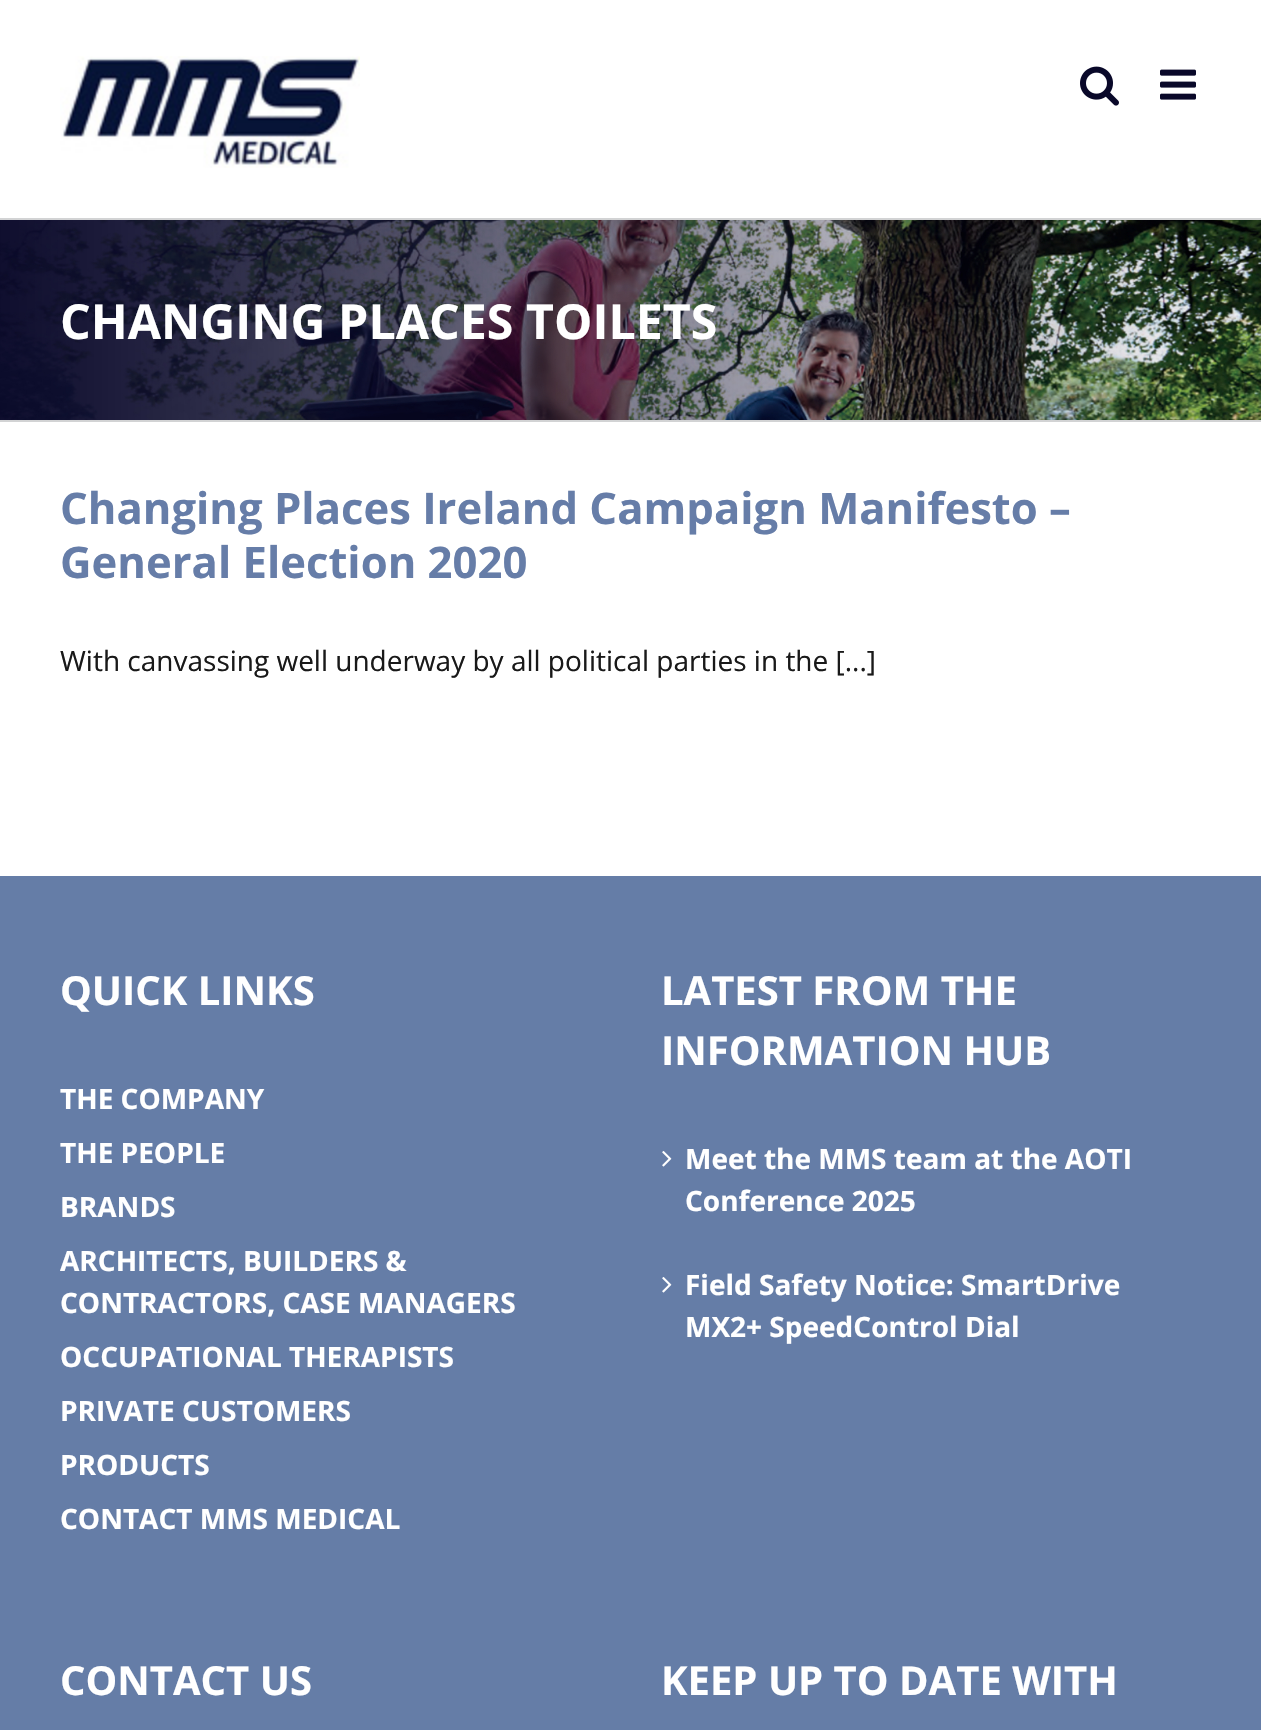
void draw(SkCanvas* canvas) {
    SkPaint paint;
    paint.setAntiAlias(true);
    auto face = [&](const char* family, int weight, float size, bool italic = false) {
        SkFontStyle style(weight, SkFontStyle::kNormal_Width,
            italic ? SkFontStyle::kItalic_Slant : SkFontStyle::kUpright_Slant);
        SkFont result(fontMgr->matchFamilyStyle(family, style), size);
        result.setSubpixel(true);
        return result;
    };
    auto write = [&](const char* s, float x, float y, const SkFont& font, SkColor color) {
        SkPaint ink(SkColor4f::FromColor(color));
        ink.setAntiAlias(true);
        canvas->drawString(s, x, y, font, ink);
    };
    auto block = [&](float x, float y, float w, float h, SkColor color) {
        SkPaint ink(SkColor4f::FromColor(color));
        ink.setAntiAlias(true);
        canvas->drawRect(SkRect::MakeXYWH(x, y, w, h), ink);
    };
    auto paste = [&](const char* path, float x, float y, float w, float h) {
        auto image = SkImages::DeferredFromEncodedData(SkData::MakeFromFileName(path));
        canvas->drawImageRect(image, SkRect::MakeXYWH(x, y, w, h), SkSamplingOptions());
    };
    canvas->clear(SK_ColorWHITE);
    paste("pic1.png", 60, 56, 300, 112);
    paste("pic2.png", 1080, 66, 39, 40);
    paste("pic3.png", 1160, 69, 36, 31);
    paste("pic4.png", 0, 220, 1261, 200);
    block(0, 218, 1261, 2, SkColorSetRGB(210, 211, 212));
    block(0, 420, 1261, 2, SkColorSetRGB(210, 211, 212));
    auto kFont1 = face("Open Sans", 700, 48.3f);
    write("CHANGING PLACES TOILETS", 60, 339, kFont1, SK_ColorWHITE);
    auto kFont2 = face("Open Sans", 700, 43.6f);
    write("Changing Places Ireland Campaign Manifesto –", 60, 524, kFont2, SkColorSetRGB(102, 125, 168));
    write("General Election 2020", 60, 578, kFont2, SkColorSetRGB(102, 125, 168));
    auto kFont3 = face("Open Sans", 400, 28);
    write("With canvassing well underway by all political parties in the [...]", 60, 671, kFont3, SkColorSetRGB(25, 25, 25));
    block(0, 876, 1261, 854, SkColorSetRGB(101, 125, 167));
    auto kFont4 = face("Open Sans", 700, 40);
    write("QUICK LINKS", 60, 1005, kFont4, SK_ColorWHITE);
    auto kFont5 = face("Open Sans", 700, 28);
    write("THE COMPANY", 60, 1109, kFont5, SK_ColorWHITE);
    write("THE PEOPLE", 60, 1163, kFont5, SK_ColorWHITE);
    write("BRANDS", 60, 1217, kFont5, SK_ColorWHITE);
    write("ARCHITECTS, BUILDERS &", 60, 1271, kFont5, SK_ColorWHITE);
    write("CONTRACTORS, CASE MANAGERS", 60, 1313, kFont5, SK_ColorWHITE);
    write("OCCUPATIONAL THERAPISTS", 60, 1367, kFont5, SK_ColorWHITE);
    write("PRIVATE CUSTOMERS", 60, 1421, kFont5, SK_ColorWHITE);
    write("PRODUCTS", 60, 1475, kFont5, SK_ColorWHITE);
    write("CONTACT MMS MEDICAL", 60, 1529, kFont5, SK_ColorWHITE);
    write("LATEST FROM THE", 661, 1005, kFont4, SK_ColorWHITE);
    write("INFORMATION HUB", 661, 1065, kFont4, SK_ColorWHITE);
    paste("pic5.png", 662, 1151, 10, 16);
    write("Meet the MMS team at the AOTI", 685, 1169, kFont5, SK_ColorWHITE);
    write("Conference 2025", 685, 1211, kFont5, SK_ColorWHITE);
    paste("pic5.png", 662, 1277, 10, 16);
    write("Field Safety Notice: SmartDrive", 685, 1295, kFont5, SK_ColorWHITE);
    write("MX2+ SpeedControl Dial", 685, 1337, kFont5, SK_ColorWHITE);
    write("CONTACT US", 60, 1695, kFont4, SK_ColorWHITE);
    write("KEEP UP TO DATE WITH", 661, 1695, kFont4, SK_ColorWHITE);
}
